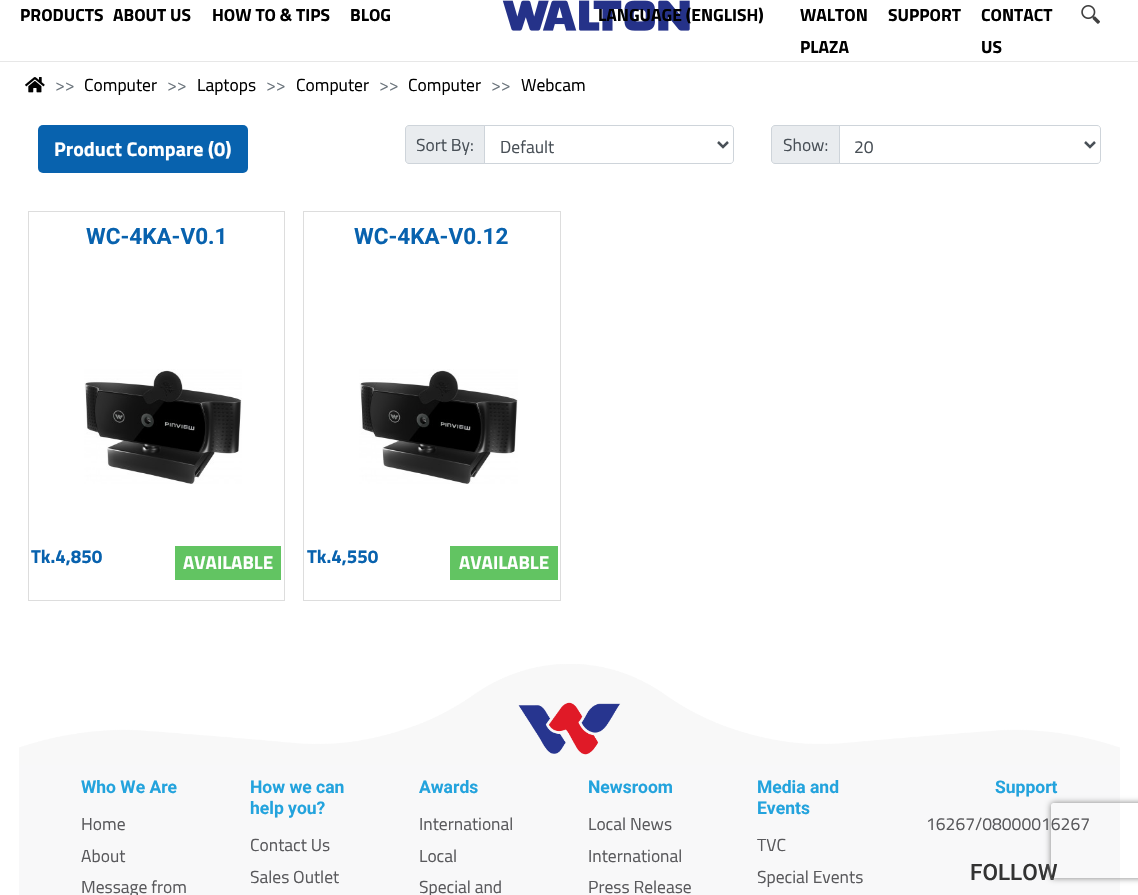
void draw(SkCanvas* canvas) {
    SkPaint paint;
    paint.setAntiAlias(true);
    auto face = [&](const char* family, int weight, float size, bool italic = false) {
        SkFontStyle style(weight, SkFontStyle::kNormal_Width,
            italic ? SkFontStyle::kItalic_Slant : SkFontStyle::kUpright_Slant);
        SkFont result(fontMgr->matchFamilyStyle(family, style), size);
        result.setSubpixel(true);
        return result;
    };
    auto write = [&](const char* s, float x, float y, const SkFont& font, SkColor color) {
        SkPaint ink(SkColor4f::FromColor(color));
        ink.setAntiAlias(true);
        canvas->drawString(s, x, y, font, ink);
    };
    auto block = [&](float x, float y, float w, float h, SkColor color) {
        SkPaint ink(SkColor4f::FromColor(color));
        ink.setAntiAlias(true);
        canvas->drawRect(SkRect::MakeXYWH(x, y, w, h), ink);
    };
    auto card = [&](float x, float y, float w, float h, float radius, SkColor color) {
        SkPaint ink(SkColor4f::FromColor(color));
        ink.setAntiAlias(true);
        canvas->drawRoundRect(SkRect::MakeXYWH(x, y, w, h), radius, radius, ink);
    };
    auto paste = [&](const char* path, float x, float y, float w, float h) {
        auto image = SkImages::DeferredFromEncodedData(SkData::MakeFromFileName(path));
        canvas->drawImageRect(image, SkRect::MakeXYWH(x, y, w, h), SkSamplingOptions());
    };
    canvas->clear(SK_ColorWHITE);
    block(0, 61, 1138, 1, SkColorSetRGB(231, 231, 231));
    auto kFont1 = face("Titillium Web", 700, 17.5f);
    write("PRODUCTS", 20, 21, kFont1, SK_ColorBLACK);
    write("ABOUT US", 113, 21, kFont1, SK_ColorBLACK);
    write("HOW TO & TIPS", 212, 21, kFont1, SK_ColorBLACK);
    write("BLOG", 350, 21, kFont1, SK_ColorBLACK);
    paste("pic1.png", 502, 0, 188, 31);
    write("LANGUAGE (ENGLISH)", 598, 21, kFont1, SK_ColorBLACK);
    write("WALTON", 800, 21, kFont1, SK_ColorBLACK);
    write("PLAZA", 800, 53, kFont1, SK_ColorBLACK);
    write("SUPPORT", 888, 21, kFont1, SK_ColorBLACK);
    write("CONTACT", 981, 21, kFont1, SK_ColorBLACK);
    write("US", 981, 53, kFont1, SK_ColorBLACK);
    paste("pic2.png", 1081, 5, 19, 19);
    paste("pic3.png", 25, 77, 20, 16);
    auto kFont2 = face("Titillium Web", 400, 17.5f);
    write(">>", 55, 91, kFont2, SkColorSetRGB(108, 117, 125));
    write("Computer", 84, 91, kFont2, SK_ColorBLACK);
    write(">>", 167, 91, kFont2, SkColorSetRGB(108, 117, 125));
    write("Laptops", 197, 91, kFont2, SK_ColorBLACK);
    write(">>", 266, 91, kFont2, SkColorSetRGB(108, 117, 125));
    write("Computer", 296, 91, kFont2, SK_ColorBLACK);
    write(">>", 379, 91, kFont2, SkColorSetRGB(108, 117, 125));
    write("Computer", 408, 91, kFont2, SK_ColorBLACK);
    write(">>", 491, 91, kFont2, SkColorSetRGB(108, 117, 125));
    write("Webcam", 521, 91, kFont2, SK_ColorBLACK);
    card(38, 125, 210, 48, 5, SkColorSetRGB(8, 98, 174));
    auto kFont3 = face("Titillium Web", 700, 20);
    write("Product Compare (0)", 54, 156, kFont3, SK_ColorWHITE);
    paint.setColor(SkColorSetRGB(233, 236, 239));
    canvas->drawPath(SkPathBuilder().moveTo(409, 125.5f).lineTo(484.5f, 125.5f).lineTo(484.5f, 163.5f).lineTo(409, 163.5f).cubicTo(407, 163.5f, 405.5f, 162, 405.5f, 160).lineTo(405.5f, 129).cubicTo(405.5f, 127, 407, 125.5f, 409, 125.5f).close().detach(), paint);
    paint.setStyle(SkPaint::kStroke_Style);
    paint.setStrokeWidth(1);
    paint.setColor(SkColorSetRGB(206, 212, 218));
    canvas->drawPath(SkPathBuilder().moveTo(409, 125.5f).lineTo(484.5f, 125.5f).lineTo(484.5f, 163.5f).lineTo(409, 163.5f).cubicTo(407, 163.5f, 405.5f, 162, 405.5f, 160).lineTo(405.5f, 129).cubicTo(405.5f, 127, 407, 125.5f, 409, 125.5f).close().detach(), paint);
    write("Sort By:", 416, 151, kFont2, SkColorSetRGB(73, 80, 87));
    canvas->drawPath(SkPathBuilder().moveTo(484.5f, 125.5f).lineTo(730, 125.5f).cubicTo(732, 125.5f, 733.5f, 127, 733.5f, 129).lineTo(733.5f, 160).cubicTo(733.5f, 162, 732, 163.5f, 730, 163.5f).lineTo(484.5f, 163.5f).close().detach(), paint);
    paint.setStrokeWidth(2.5f);
    paint.setColor(SkColorSetRGB(73, 80, 87));
    canvas->drawPath(SkPathBuilder().moveTo(718, 142).lineTo(723, 147).lineTo(728, 142).detach(), paint);
    write("Default", 500, 153, kFont2, SkColorSetRGB(73, 80, 87));
    paint.setStyle(SkPaint::kFill_Style);
    paint.setColor(SkColorSetRGB(233, 236, 239));
    canvas->drawPath(SkPathBuilder().moveTo(775, 125.5f).lineTo(839.5f, 125.5f).lineTo(839.5f, 163.5f).lineTo(775, 163.5f).cubicTo(773, 163.5f, 771.5f, 162, 771.5f, 160).lineTo(771.5f, 129).cubicTo(771.5f, 127, 773, 125.5f, 775, 125.5f).close().detach(), paint);
    paint.setStyle(SkPaint::kStroke_Style);
    paint.setStrokeWidth(1);
    paint.setColor(SkColorSetRGB(206, 212, 218));
    canvas->drawPath(SkPathBuilder().moveTo(775, 125.5f).lineTo(839.5f, 125.5f).lineTo(839.5f, 163.5f).lineTo(775, 163.5f).cubicTo(773, 163.5f, 771.5f, 162, 771.5f, 160).lineTo(771.5f, 129).cubicTo(771.5f, 127, 773, 125.5f, 775, 125.5f).close().detach(), paint);
    write("Show:", 783, 151, kFont2, SkColorSetRGB(73, 80, 87));
    canvas->drawPath(SkPathBuilder().moveTo(839.5f, 125.5f).lineTo(1097, 125.5f).cubicTo(1099, 125.5f, 1100.5f, 127, 1100.5f, 129).lineTo(1100.5f, 160).cubicTo(1100.5f, 162, 1099, 163.5f, 1097, 163.5f).lineTo(839.5f, 163.5f).close().detach(), paint);
    paint.setStrokeWidth(2.5f);
    paint.setColor(SkColorSetRGB(73, 80, 87));
    canvas->drawPath(SkPathBuilder().moveTo(1085, 142).lineTo(1090, 147).lineTo(1095, 142).detach(), paint);
    write("20", 854, 153, kFont2, SkColorSetRGB(73, 80, 87));
    paint.setStrokeWidth(1);
    paint.setColor(SkColorSetRGB(221, 221, 221));
    canvas->drawRect(SkRect::MakeXYWH(28.5f, 211.5f, 256, 389), paint);
    auto kFont4 = face("Roboto", 700, 22.5f);
    write("WC-4KA-V0.1", 86, 244, kFont4, SkColorSetRGB(8, 98, 174));
    paste("pic4.png", 84, 369, 158, 115);
    auto kFont5 = face("Titillium Web", 700, 18.75f);
    write("Tk.4,850", 31, 563, kFont5, SkColorSetRGB(8, 98, 174));
    block(175, 546, 106, 34, SkColorSetRGB(98, 196, 98));
    write("AVAILABLE", 183, 569, kFont5, SK_ColorWHITE);
    canvas->drawRect(SkRect::MakeXYWH(303.5f, 211.5f, 257, 389), paint);
    write("WC-4KA-V0.12", 354, 244, kFont4, SkColorSetRGB(8, 98, 174));
    paste("pic5.png", 359, 369, 159, 115);
    write("Tk.4,550", 307, 563, kFont5, SkColorSetRGB(8, 98, 174));
    block(450, 546, 108, 34, SkColorSetRGB(98, 196, 98));
    write("AVAILABLE", 459, 569, kFont5, SK_ColorWHITE);
    paste("pic6.png", 19, 664, 1101, 101);
    block(19, 765, 1101, 130, SkColorSetRGB(248, 248, 249));
    auto kFont6 = face("Roboto", 700, 17.5f);
    write("Who We Are", 81, 793, kFont6, SkColorSetRGB(35, 163, 221));
    write("Home", 81, 830, kFont2, SkColorSetRGB(89, 89, 92));
    write("About", 81, 862, kFont2, SkColorSetRGB(89, 89, 92));
    write("Message from", 81, 893, kFont2, SkColorSetRGB(89, 89, 92));
    write("How we can", 250, 793, kFont6, SkColorSetRGB(35, 163, 221));
    write("help you?", 250, 814, kFont6, SkColorSetRGB(35, 163, 221));
    write("Contact Us", 250, 851, kFont2, SkColorSetRGB(89, 89, 92));
    write("Sales Outlet", 250, 883, kFont2, SkColorSetRGB(89, 89, 92));
    write("Awards", 419, 793, kFont6, SkColorSetRGB(35, 163, 221));
    write("International", 419, 830, kFont2, SkColorSetRGB(89, 89, 92));
    write("Local", 419, 862, kFont2, SkColorSetRGB(89, 89, 92));
    write("Special and", 419, 893, kFont2, SkColorSetRGB(89, 89, 92));
    write("Newsroom", 588, 793, kFont6, SkColorSetRGB(35, 163, 221));
    write("Local News", 588, 830, kFont2, SkColorSetRGB(89, 89, 92));
    write("International", 588, 862, kFont2, SkColorSetRGB(89, 89, 92));
    write("Press Release", 588, 893, kFont2, SkColorSetRGB(89, 89, 92));
    write("Media and", 757, 793, kFont6, SkColorSetRGB(35, 163, 221));
    write("Events", 757, 814, kFont6, SkColorSetRGB(35, 163, 221));
    write("TVC", 757, 851, kFont2, SkColorSetRGB(89, 89, 92));
    write("Special Events", 757, 883, kFont2, SkColorSetRGB(89, 89, 92));
    write("Support", 995, 793, kFont6, SkColorSetRGB(35, 163, 221));
    write("16267/08000016267", 926, 830, kFont2, SkColorSetRGB(89, 89, 92));
    auto kFont7 = face("Roboto", 500, 22.5f);
    write("FOLLOW", 970, 880, kFont7, SkColorSetRGB(51, 51, 51));
    canvas->save();
    canvas->clipPath(SkPathBuilder(SkPathFillType::kEvenOdd).moveTo(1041, 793).lineTo(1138, 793).lineTo(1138, 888).lineTo(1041, 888).close().moveTo(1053.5f, 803).lineTo(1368.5f, 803).cubicTo(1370, 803, 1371, 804, 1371, 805.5f).lineTo(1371, 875.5f).cubicTo(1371, 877, 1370, 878, 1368.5f, 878).lineTo(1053.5f, 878).cubicTo(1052, 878, 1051, 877, 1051, 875.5f).lineTo(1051, 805.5f).cubicTo(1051, 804, 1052, 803, 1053.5f, 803).close().detach(), true);
    paint.setStyle(SkPaint::kFill_Style);
    paint.setColor(SkColorSetRGB(128, 128, 128));
    paint.setMaskFilter(SkMaskFilter::MakeBlur(kNormal_SkBlurStyle, 3));
    canvas->drawRoundRect(SkRect::MakeXYWH(1051, 803, 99, 75), 2.5f, 2.5f, paint);
    paint.setMaskFilter(nullptr);
    canvas->restore();
}
